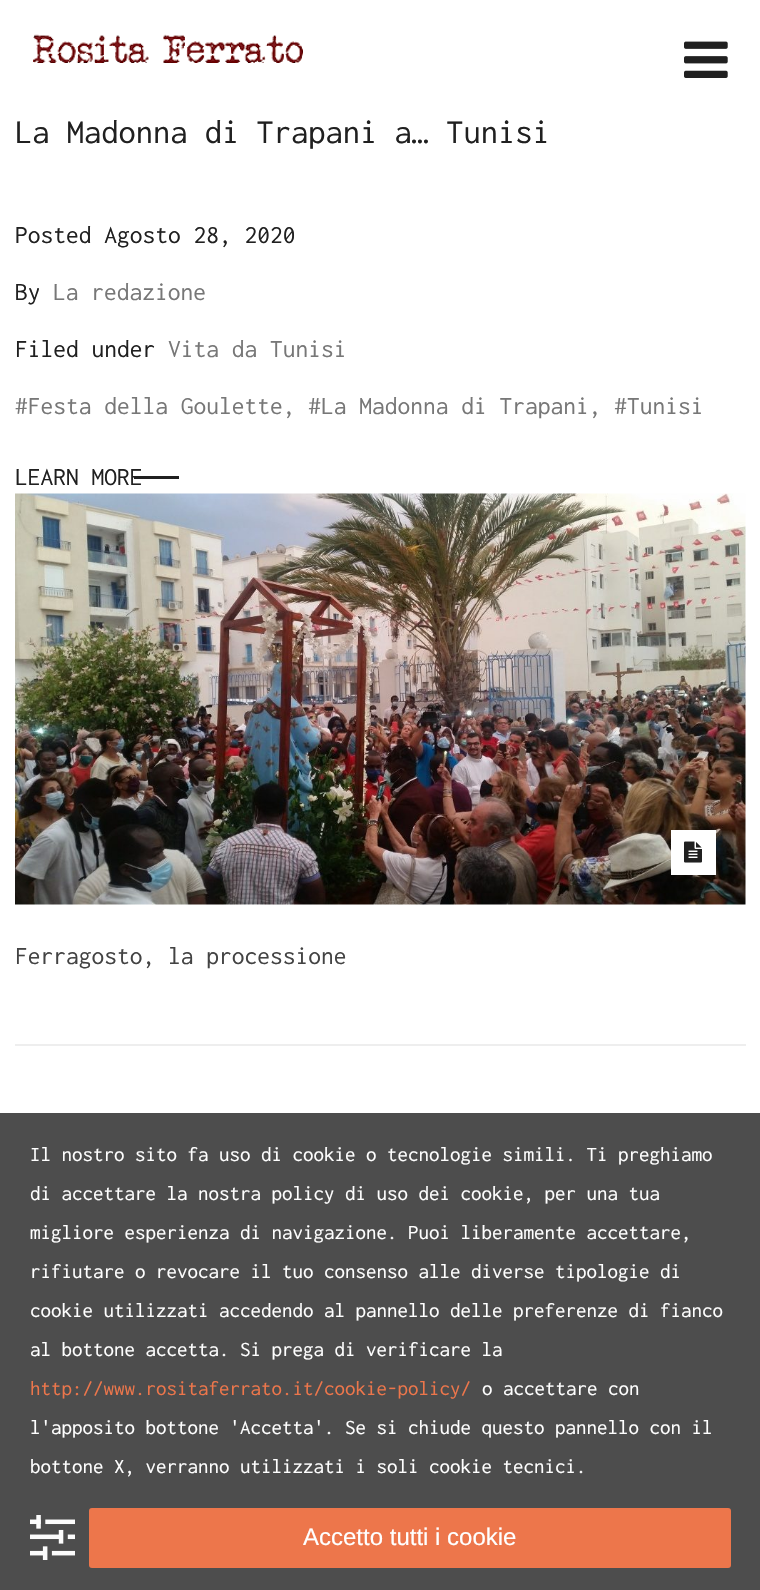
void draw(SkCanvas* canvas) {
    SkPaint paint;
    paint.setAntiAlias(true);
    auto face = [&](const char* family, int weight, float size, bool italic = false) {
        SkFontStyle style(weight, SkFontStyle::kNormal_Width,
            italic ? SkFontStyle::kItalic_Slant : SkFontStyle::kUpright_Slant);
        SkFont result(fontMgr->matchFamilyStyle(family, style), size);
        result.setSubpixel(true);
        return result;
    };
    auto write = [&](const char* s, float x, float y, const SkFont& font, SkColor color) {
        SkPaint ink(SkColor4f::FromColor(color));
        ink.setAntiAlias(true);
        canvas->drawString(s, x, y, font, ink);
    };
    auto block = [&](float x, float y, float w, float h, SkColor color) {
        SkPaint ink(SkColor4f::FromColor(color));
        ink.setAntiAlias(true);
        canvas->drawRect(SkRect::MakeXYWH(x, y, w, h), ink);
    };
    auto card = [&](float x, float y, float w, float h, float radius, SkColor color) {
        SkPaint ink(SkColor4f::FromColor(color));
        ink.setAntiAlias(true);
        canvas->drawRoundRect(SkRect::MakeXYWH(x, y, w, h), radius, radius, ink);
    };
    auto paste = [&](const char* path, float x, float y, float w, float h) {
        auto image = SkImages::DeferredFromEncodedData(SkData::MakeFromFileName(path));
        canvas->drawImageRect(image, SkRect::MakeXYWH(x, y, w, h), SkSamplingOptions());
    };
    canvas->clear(SK_ColorWHITE);
    block(0, 1113, 760, 477, SkColorSetRGB(77, 77, 77));
    paste("pic1.png", 33, 34, 270, 29);
    paste("pic2.png", 684, 41, 44, 37);
    auto kFont1 = face("Inconsolata", 400, 34.5f);
    write("La Madonna di Trapani a… Tunisi", 15, 143, kFont1, SkColorSetRGB(32, 32, 32));
    auto kFont2 = face("Inconsolata", 400, 25.5f);
    write("Posted Agosto 28, 2020", 15, 243, kFont2, SkColorSetRGB(32, 32, 32));
    write("By", 15, 300, kFont2, SkColorSetRGB(32, 32, 32));
    write("La redazione", 53, 300, kFont2, SkColorSetRGB(119, 119, 119));
    write("Filed under", 15, 357, kFont2, SkColorSetRGB(32, 32, 32));
    write("Vita da Tunisi", 168, 357, kFont2, SkColorSetRGB(119, 119, 119));
    write("#Festa della Goulette, #La Madonna di Trapani, #Tunisi", 15, 414, kFont2, SkColorSetRGB(119, 119, 119));
    write("LEARN MORE", 15, 485, kFont2, SkColorSetRGB(32, 32, 32));
    block(134, 476, 45, 3, SkColorSetRGB(32, 32, 32));
    paste("pic3.png", 15, 493, 731, 412);
    block(671, 830, 45, 45, SK_ColorWHITE);
    paste("pic4.png", 684, 841, 18, 22);
    write("Ferragosto, la processione", 15, 964, kFont2, SkColorSetRGB(67, 67, 67));
    block(15, 1044, 731, 2, SkColorSetRGB(238, 238, 238));
    auto kFont3 = face("Inconsolata", 400, 21);
    write("Il nostro sito fa uso di cookie o tecnologie simili. Ti preghiamo", 30, 1161, kFont3, SK_ColorWHITE);
    write("di accettare la nostra policy di uso dei cookie, per una tua", 30, 1200, kFont3, SK_ColorWHITE);
    write("migliore esperienza di navigazione. Puoi liberamente accettare,", 30, 1239, kFont3, SK_ColorWHITE);
    write("rifiutare o revocare il tuo consenso alle diverse tipologie di", 30, 1278, kFont3, SK_ColorWHITE);
    write("cookie utilizzati accedendo al pannello delle preferenze di fianco", 30, 1317, kFont3, SK_ColorWHITE);
    write("al bottone accetta. Si prega di verificare la", 30, 1356, kFont3, SK_ColorWHITE);
    write("http://www.rositaferrato.it/cookie-policy/", 30, 1395, kFont3, SkColorSetRGB(237, 118, 75));
    write("o accettare con", 482, 1395, kFont3, SK_ColorWHITE);
    write("l'apposito bottone 'Accetta'. Se si chiude questo pannello con il", 30, 1434, kFont3, SK_ColorWHITE);
    write("bottone X, verranno utilizzati i soli cookie tecnici.", 30, 1473, kFont3, SK_ColorWHITE);
    paste("pic5.png", 30, 1515, 45, 45);
    card(89, 1508, 642, 60, 3, SkColorSetRGB(237, 118, 75));
    auto kFont4 = face("Liberation Sans", 400, 24);
    write("Accetto tutti i cookie", 303, 1545, kFont4, SK_ColorWHITE);
}
